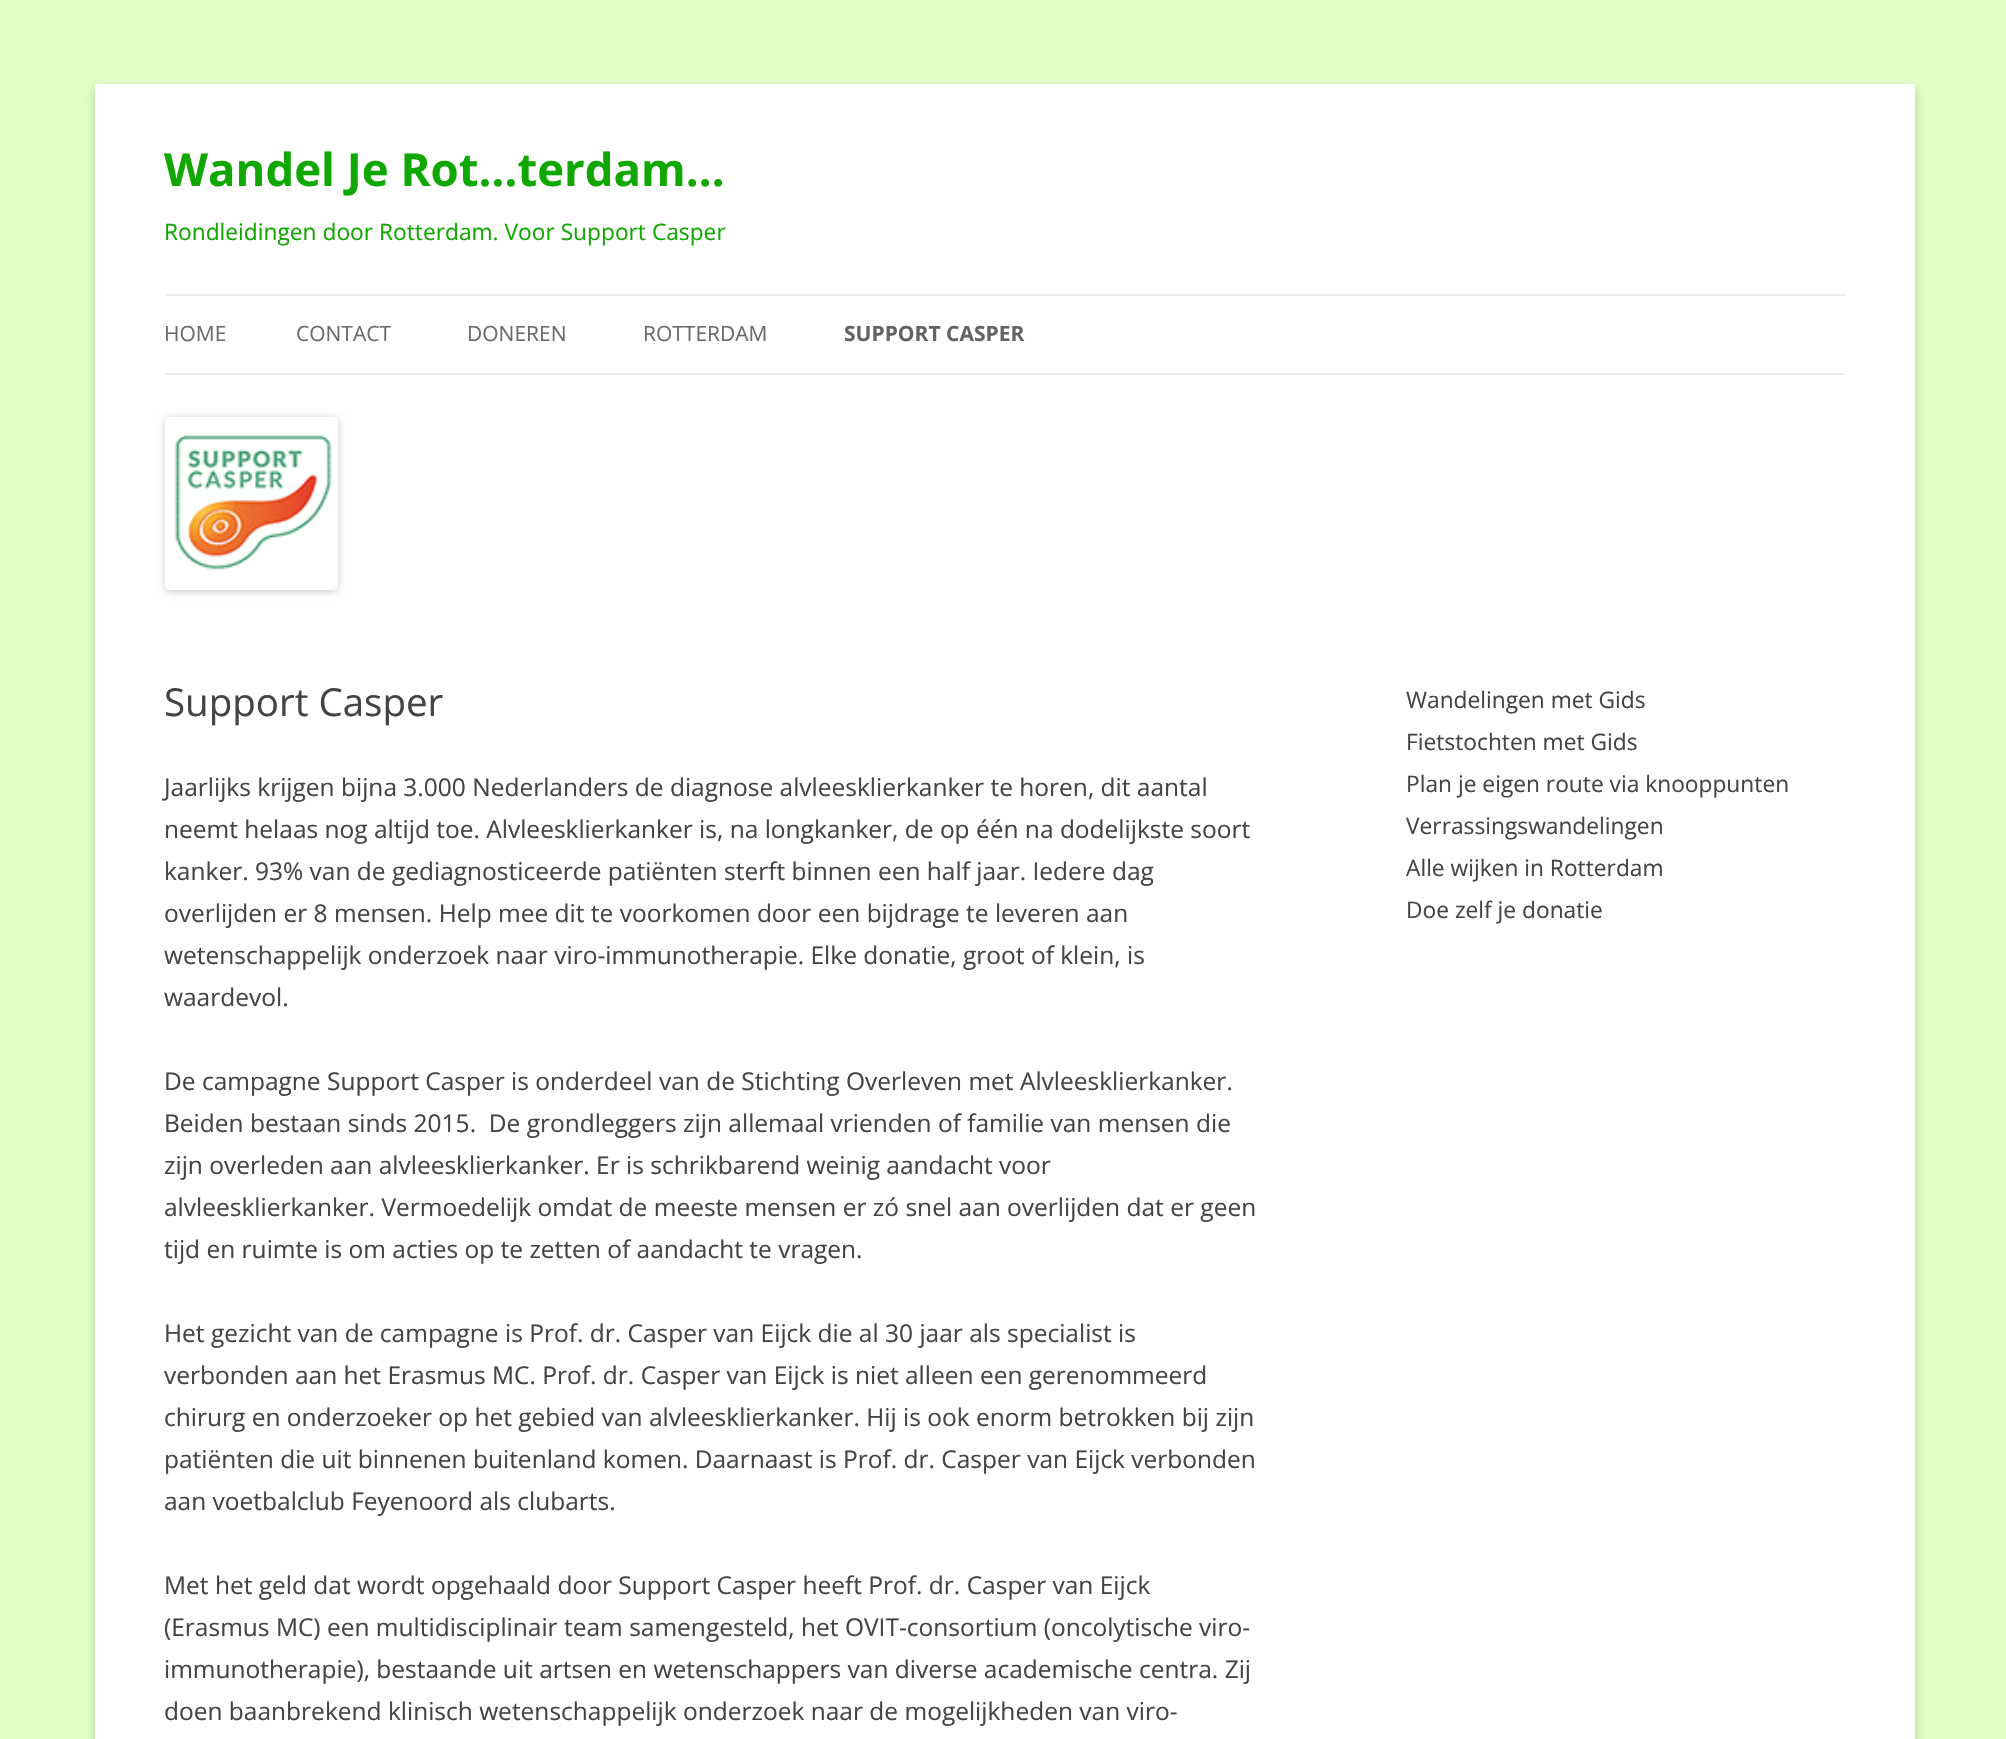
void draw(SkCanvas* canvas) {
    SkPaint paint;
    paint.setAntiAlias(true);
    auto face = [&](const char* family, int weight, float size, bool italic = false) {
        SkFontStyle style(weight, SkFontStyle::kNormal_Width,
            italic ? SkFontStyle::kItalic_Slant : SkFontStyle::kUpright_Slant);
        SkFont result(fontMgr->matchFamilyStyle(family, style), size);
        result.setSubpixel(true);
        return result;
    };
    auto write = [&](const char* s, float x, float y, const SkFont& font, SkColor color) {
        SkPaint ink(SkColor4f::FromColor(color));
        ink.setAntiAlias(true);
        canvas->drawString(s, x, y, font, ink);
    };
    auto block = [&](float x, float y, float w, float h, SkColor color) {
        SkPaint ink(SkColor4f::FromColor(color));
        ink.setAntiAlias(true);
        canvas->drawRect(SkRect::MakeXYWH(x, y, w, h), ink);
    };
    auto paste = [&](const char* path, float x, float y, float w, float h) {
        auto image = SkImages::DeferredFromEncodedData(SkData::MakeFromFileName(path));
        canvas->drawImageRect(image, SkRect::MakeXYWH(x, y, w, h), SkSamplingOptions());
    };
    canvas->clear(SkColorSetRGB(226, 255, 198));
    paint.setColor(SkColorSetARGB(77, 100, 100, 100));
    paint.setMaskFilter(SkMaskFilter::MakeBlur(kNormal_SkBlurStyle, 5));
    canvas->drawRect(SkRect::MakeXYWH(95, 88, 1820, 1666), paint);
    paint.setMaskFilter(nullptr);
    block(95, 84, 1820, 1655, SK_ColorWHITE);
    auto kFont1 = face("Open Sans", 700, 45.5f);
    write("Wandel Je Rot…terdam…", 164, 186, kFont1, SkColorSetRGB(16, 168, 0));
    auto kFont2 = face("Open Sans", 400, 22.75f);
    write("Rondleidingen door Rotterdam. Voor Support Casper", 164, 240, kFont2, SkColorSetRGB(16, 168, 0));
    block(165, 294, 1680, 2, SkColorSetRGB(237, 237, 237));
    block(165, 373, 1680, 2, SkColorSetRGB(237, 237, 237));
    auto kFont3 = face("Open Sans", 400, 21);
    write("HOME", 164, 341, kFont3, SkColorSetRGB(106, 106, 106));
    write("CONTACT", 296, 341, kFont3, SkColorSetRGB(106, 106, 106));
    write("DONEREN", 467, 341, kFont3, SkColorSetRGB(106, 106, 106));
    write("ROTTERDAM", 643, 341, kFont3, SkColorSetRGB(106, 106, 106));
    auto kFont4 = face("Open Sans", 700, 21);
    write("SUPPORT CASPER", 844, 341, kFont4, SkColorSetRGB(99, 99, 99));
    canvas->save();
    canvas->clipPath(SkPathBuilder(SkPathFillType::kEvenOdd).moveTo(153, 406).lineTo(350, 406).lineTo(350, 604).lineTo(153, 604).close().moveTo(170, 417).lineTo(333, 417).cubicTo(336, 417, 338, 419, 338, 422).lineTo(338, 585).cubicTo(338, 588, 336, 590, 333, 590).lineTo(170, 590).cubicTo(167, 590, 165, 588, 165, 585).lineTo(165, 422).cubicTo(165, 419, 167, 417, 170, 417).close().detach(), true);
    paint.setColor(SkColorSetARGB(51, 0, 0, 0));
    paint.setMaskFilter(SkMaskFilter::MakeBlur(kNormal_SkBlurStyle, 3.5f));
    canvas->drawRoundRect(SkRect::MakeXYWH(165, 418, 173, 174), 5, 5, paint);
    paint.setMaskFilter(nullptr);
    canvas->restore();
    paste("pic1.png", 174, 435, 158, 135);
    auto kFont5 = face("Open Sans", 400, 38.5f);
    write("Support Casper", 164, 716, kFont5, SkColorSetRGB(68, 68, 68));
    auto kFont6 = face("Open Sans", 400, 24.5f);
    write("Jaarlijks krijgen bijna 3.000 Nederlanders de diagnose alvleesklierkanker te horen, dit aantal", 164, 796, kFont6, SkColorSetRGB(68, 68, 68));
    write("neemt helaas nog altijd toe. Alvleesklierkanker is, na longkanker, de op één na dodelijkste soort", 164, 838, kFont6, SkColorSetRGB(68, 68, 68));
    write("kanker. 93% van de gediagnosticeerde patiënten sterft binnen een half jaar. Iedere dag", 164, 880, kFont6, SkColorSetRGB(68, 68, 68));
    write("overlijden er 8 mensen. Help mee dit te voorkomen door een bijdrage te leveren aan", 164, 922, kFont6, SkColorSetRGB(68, 68, 68));
    write("wetenschappelijk onderzoek naar viro-immunotherapie. Elke donatie, groot of klein, is", 164, 964, kFont6, SkColorSetRGB(68, 68, 68));
    write("waardevol.", 164, 1006, kFont6, SkColorSetRGB(68, 68, 68));
    write("De campagne Support Casper is onderdeel van de Stichting Overleven met Alvleesklierkanker.", 164, 1090, kFont6, SkColorSetRGB(68, 68, 68));
    write("Beiden bestaan sinds 2015.  De grondleggers zijn allemaal vrienden of familie van mensen die", 164, 1132, kFont6, SkColorSetRGB(68, 68, 68));
    write("zijn overleden aan alvleesklierkanker. Er is schrikbarend weinig aandacht voor", 164, 1174, kFont6, SkColorSetRGB(68, 68, 68));
    write("alvleesklierkanker. Vermoedelijk omdat de meeste mensen er zó snel aan overlijden dat er geen", 164, 1216, kFont6, SkColorSetRGB(68, 68, 68));
    write("tijd en ruimte is om acties op te zetten of aandacht te vragen.", 164, 1258, kFont6, SkColorSetRGB(68, 68, 68));
    write("Het gezicht van de campagne is Prof. dr. Casper van Eijck die al 30 jaar als specialist is", 164, 1342, kFont6, SkColorSetRGB(68, 68, 68));
    write("verbonden aan het Erasmus MC. Prof. dr. Casper van Eijck is niet alleen een gerenommeerd", 164, 1384, kFont6, SkColorSetRGB(68, 68, 68));
    write("chirurg en onderzoeker op het gebied van alvleesklierkanker. Hij is ook enorm betrokken bij zijn", 164, 1426, kFont6, SkColorSetRGB(68, 68, 68));
    write("patiënten die uit binnenen buitenland komen. Daarnaast is Prof. dr. Casper van Eijck verbonden", 164, 1468, kFont6, SkColorSetRGB(68, 68, 68));
    write("aan voetbalclub Feyenoord als clubarts.", 164, 1510, kFont6, SkColorSetRGB(68, 68, 68));
    write("Met het geld dat wordt opgehaald door Support Casper heeft Prof. dr. Casper van Eijck", 164, 1594, kFont6, SkColorSetRGB(68, 68, 68));
    write("(Erasmus MC) een multidisciplinair team samengesteld, het OVIT-consortium (oncolytische viro-", 164, 1636, kFont6, SkColorSetRGB(68, 68, 68));
    write("immunotherapie), bestaande uit artsen en wetenschappers van diverse academische centra. Zij", 164, 1678, kFont6, SkColorSetRGB(68, 68, 68));
    write("doen baanbrekend klinisch wetenschappelijk onderzoek naar de mogelijkheden van viro-", 164, 1720, kFont6, SkColorSetRGB(68, 68, 68));
    write("Wandelingen met Gids", 1406, 708, kFont2, SkColorSetRGB(68, 68, 68));
    write("Fietstochten met Gids", 1406, 750, kFont2, SkColorSetRGB(68, 68, 68));
    write("Plan je eigen route via knooppunten", 1406, 792, kFont2, SkColorSetRGB(68, 68, 68));
    write("Verrassingswandelingen", 1406, 834, kFont2, SkColorSetRGB(68, 68, 68));
    write("Alle wijken in Rotterdam", 1406, 876, kFont2, SkColorSetRGB(68, 68, 68));
    write("Doe zelf je donatie", 1406, 918, kFont2, SkColorSetRGB(68, 68, 68));
}
